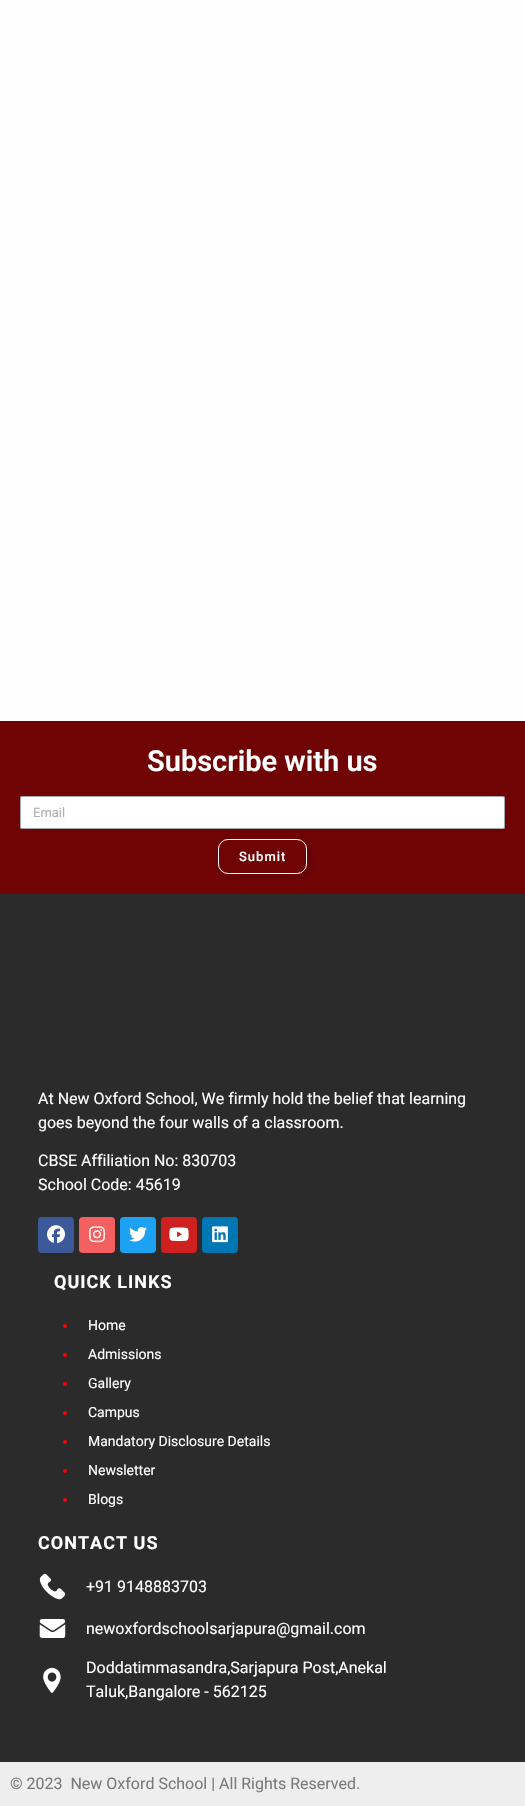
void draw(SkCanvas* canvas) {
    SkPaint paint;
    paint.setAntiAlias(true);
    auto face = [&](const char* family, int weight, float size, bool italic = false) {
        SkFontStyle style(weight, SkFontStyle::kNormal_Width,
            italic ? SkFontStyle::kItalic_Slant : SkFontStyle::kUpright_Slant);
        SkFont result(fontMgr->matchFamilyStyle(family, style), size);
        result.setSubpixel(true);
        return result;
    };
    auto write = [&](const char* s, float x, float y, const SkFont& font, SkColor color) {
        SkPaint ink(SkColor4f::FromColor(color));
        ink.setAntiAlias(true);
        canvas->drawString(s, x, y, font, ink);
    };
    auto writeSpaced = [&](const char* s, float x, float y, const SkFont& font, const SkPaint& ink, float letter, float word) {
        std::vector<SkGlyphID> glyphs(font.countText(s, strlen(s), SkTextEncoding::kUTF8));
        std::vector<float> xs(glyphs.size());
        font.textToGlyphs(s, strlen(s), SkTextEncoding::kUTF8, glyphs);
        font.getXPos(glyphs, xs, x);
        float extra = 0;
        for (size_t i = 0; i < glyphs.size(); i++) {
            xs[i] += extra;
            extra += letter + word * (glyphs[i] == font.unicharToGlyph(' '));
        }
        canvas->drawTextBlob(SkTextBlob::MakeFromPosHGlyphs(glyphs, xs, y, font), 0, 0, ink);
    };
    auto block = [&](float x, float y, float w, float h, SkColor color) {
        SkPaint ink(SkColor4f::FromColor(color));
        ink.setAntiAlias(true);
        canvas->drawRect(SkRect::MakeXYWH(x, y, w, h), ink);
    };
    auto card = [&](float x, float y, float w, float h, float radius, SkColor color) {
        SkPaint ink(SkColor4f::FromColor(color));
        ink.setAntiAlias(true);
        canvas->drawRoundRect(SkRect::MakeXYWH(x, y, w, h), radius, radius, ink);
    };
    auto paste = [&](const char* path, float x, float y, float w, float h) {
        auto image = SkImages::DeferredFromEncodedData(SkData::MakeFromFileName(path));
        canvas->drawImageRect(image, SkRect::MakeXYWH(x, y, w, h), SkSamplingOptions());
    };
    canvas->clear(SkColorSetRGB(239, 238, 238));
    block(0, 0, 525, 721, SkColorSetRGB(254, 254, 254));
    block(0, 721, 525, 173, SkColorSetRGB(112, 4, 5));
    auto kFont1 = face("Roboto", 600, 29);
    write("Subscribe with us", 147, 771, kFont1, SK_ColorWHITE);
    card(20, 796, 485, 33, 2, SK_ColorWHITE);
    paint.setStyle(SkPaint::kStroke_Style);
    paint.setStrokeWidth(1);
    paint.setColor(SkColorSetARGB(94, 1, 22, 39));
    canvas->drawRoundRect(SkRect::MakeXYWH(20.5f, 796.5f, 484, 32), 1.5f, 1.5f, paint);
    auto kFont2 = face("Roboto", 400, 13);
    write("Email", 33, 817, kFont2, SkColorSetRGB(175, 175, 175));
    paint.setStyle(SkPaint::kFill_Style);
    paint.setColor(SkColorSetARGB(26, 0, 0, 0));
    paint.setMaskFilter(SkMaskFilter::MakeBlur(kNormal_SkBlurStyle, 5));
    canvas->drawRoundRect(SkRect::MakeXYWH(223, 844, 89, 35), 10, 10, paint);
    paint.setMaskFilter(nullptr);
    paint.setColor(SkColorSetRGB(112, 4, 5));
    canvas->drawRoundRect(SkRect::MakeXYWH(218.5f, 839.5f, 88, 34), 9.5f, 9.5f, paint);
    paint.setStyle(SkPaint::kStroke_Style);
    paint.setColor(SK_ColorWHITE);
    canvas->drawRoundRect(SkRect::MakeXYWH(218.5f, 839.5f, 88, 34), 9.5f, 9.5f, paint);
    auto kFont3 = face("Roboto", 500, 13);
    paint.setStyle(SkPaint::kFill_Style);
    writeSpaced("Submit", 239, 861, kFont3, paint, 1, 0);
    block(0, 894, 525, 868, SkColorSetRGB(43, 43, 43));
    auto kFont4 = face("Roboto", 400, 16);
    write("At New Oxford School, We firmly hold the belief that learning", 38, 1104, kFont4, SK_ColorWHITE);
    write("goes beyond the four walls of a classroom.", 38, 1128, kFont4, SK_ColorWHITE);
    write("CBSE Affiliation No: 830703", 38, 1166, kFont4, SK_ColorWHITE);
    write("School Code: 45619", 38, 1190, kFont4, SK_ColorWHITE);
    card(38, 1217, 36, 36, 4, SkColorSetRGB(59, 89, 152));
    paste("pic1.png", 47, 1225, 18, 19);
    card(79, 1217, 36, 36, 4, SkColorSetRGB(244, 95, 95));
    paste("pic2.png", 89, 1226, 16, 17);
    card(120, 1217, 36, 36, 4, SkColorSetRGB(29, 161, 242));
    paste("pic3.png", 129, 1227, 18, 15);
    card(161, 1217, 36, 36, 4, SkColorSetRGB(205, 32, 31));
    paste("pic4.png", 169, 1227, 20, 14);
    card(202, 1217, 36, 36, 4, SkColorSetRGB(0, 119, 181));
    paste("pic5.png", 212, 1226, 16, 17);
    auto kFont5 = face("Roboto", 700, 18);
    writeSpaced("QUICK LINKS", 54, 1288, kFont5, paint, 1, 0);
    paint.setColor(SkColorSetRGB(255, 0, 0));
    canvas->drawCircle(65, 1326, 2, paint);
    auto kFont6 = face("Roboto", 400, 14);
    write("Home", 88, 1330, kFont6, SK_ColorWHITE);
    canvas->drawCircle(65, 1355, 2, paint);
    write("Admissions", 88, 1359, kFont6, SK_ColorWHITE);
    canvas->drawCircle(65, 1384, 2, paint);
    write("Gallery", 88, 1388, kFont6, SK_ColorWHITE);
    canvas->drawCircle(65, 1413, 2, paint);
    write("Campus", 88, 1417, kFont6, SK_ColorWHITE);
    canvas->drawCircle(65, 1442, 2, paint);
    write("Mandatory Disclosure Details", 88, 1446, kFont6, SK_ColorWHITE);
    canvas->drawCircle(65, 1471, 2, paint);
    write("Newsletter", 88, 1475, kFont6, SK_ColorWHITE);
    canvas->drawCircle(65, 1500, 2, paint);
    write("Blogs", 88, 1504, kFont6, SK_ColorWHITE);
    paint.setColor(SK_ColorWHITE);
    writeSpaced("CONTACT US", 38, 1549, kFont5, paint, 1, 0);
    paste("pic6.png", 39, 1573, 27, 27);
    write("+91 9148883703", 86, 1592, kFont4, SK_ColorWHITE);
    paste("pic7.png", 39, 1619, 27, 19);
    write("newoxfordschoolsarjapura@gmail.com", 86, 1634, kFont4, SK_ColorWHITE);
    paste("pic8.png", 43, 1667, 18, 26);
    write("Doddatimmasandra,Sarjapura Post,Anekal", 86, 1673, kFont4, SK_ColorWHITE);
    write("Taluk,Bangalore - 562125", 86, 1697, kFont4, SK_ColorWHITE);
    write("© 2023  New Oxford School | All Rights Reserved.", 10, 1789, kFont4, SkColorSetRGB(122, 122, 122));
}
